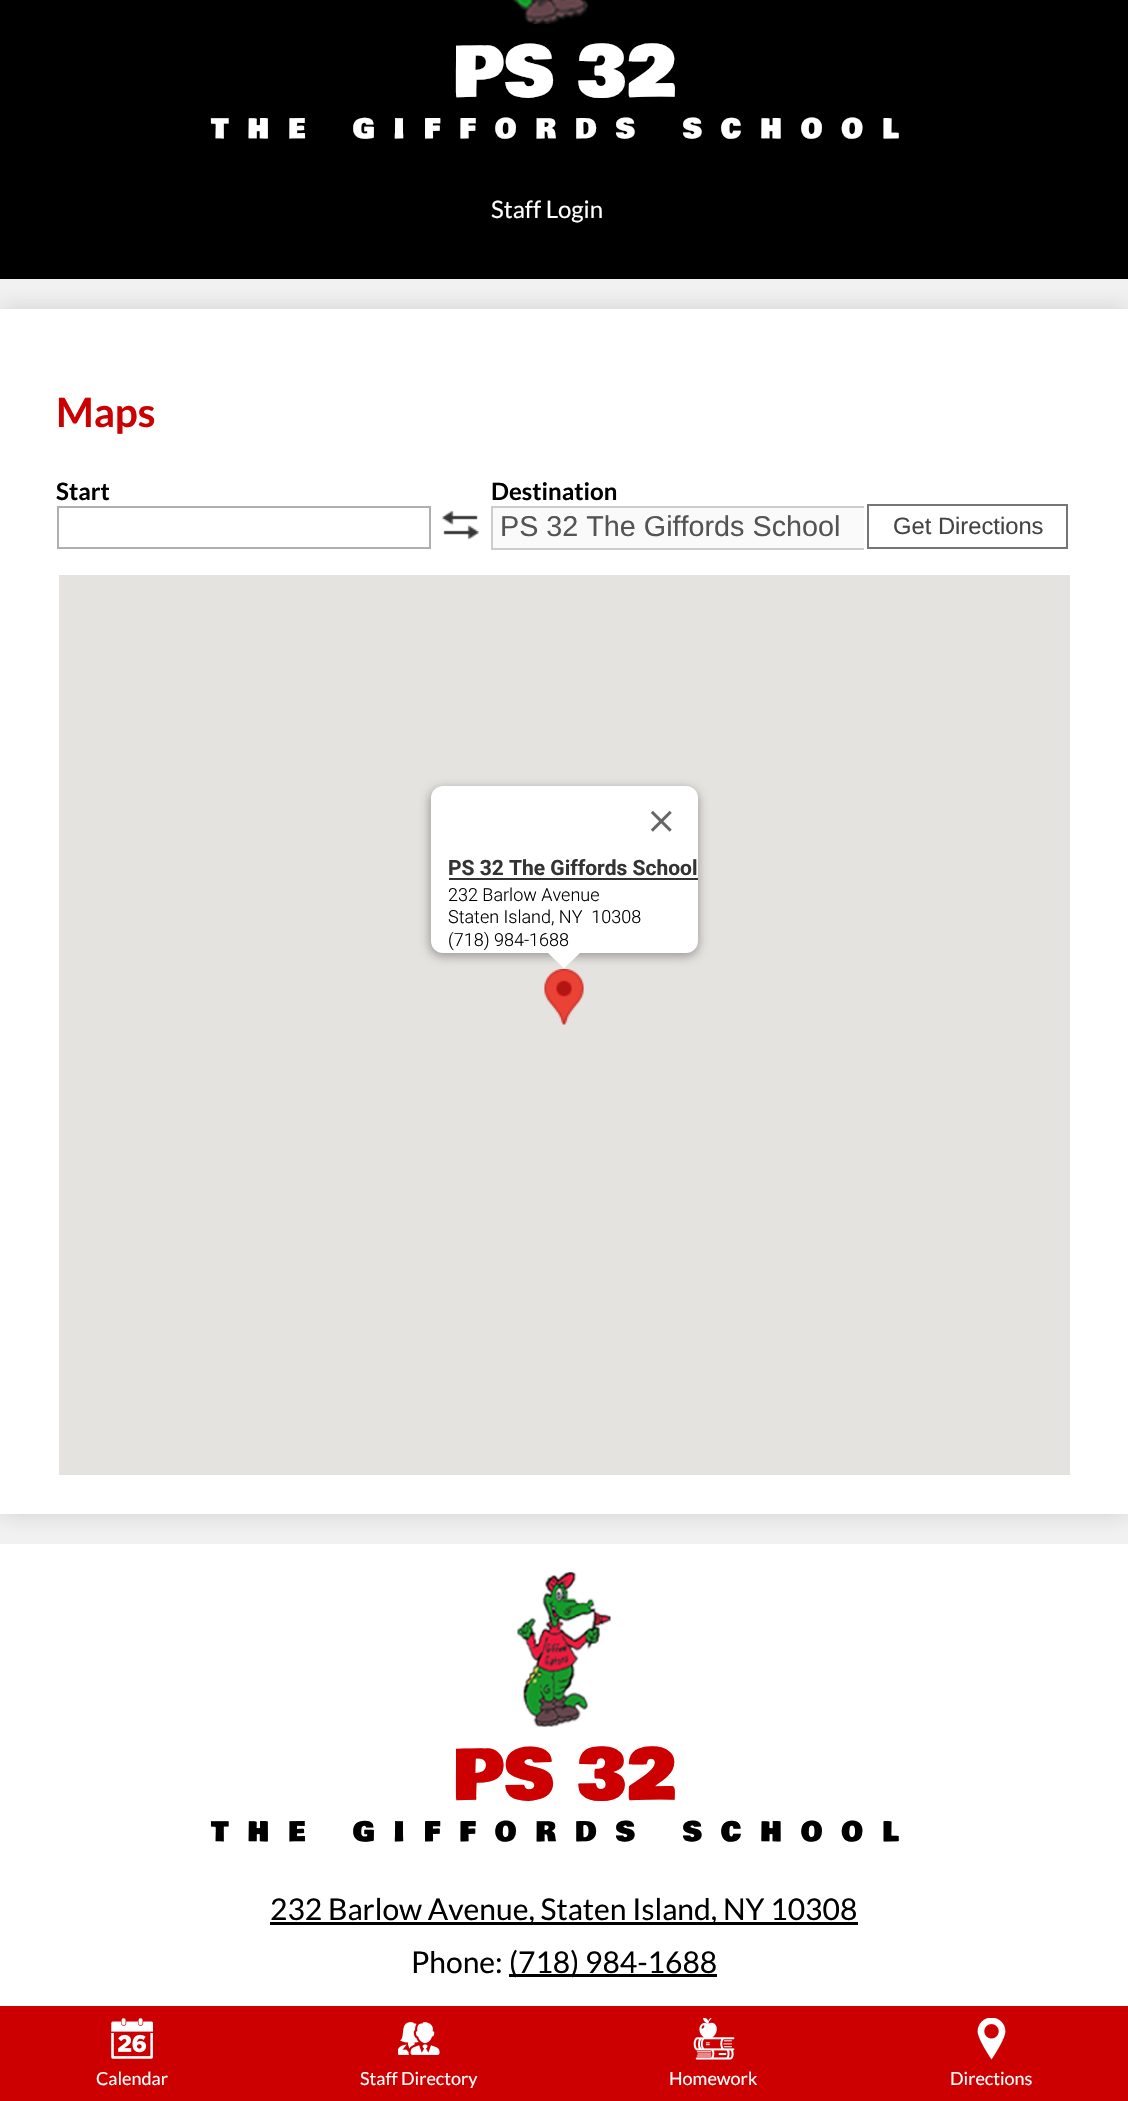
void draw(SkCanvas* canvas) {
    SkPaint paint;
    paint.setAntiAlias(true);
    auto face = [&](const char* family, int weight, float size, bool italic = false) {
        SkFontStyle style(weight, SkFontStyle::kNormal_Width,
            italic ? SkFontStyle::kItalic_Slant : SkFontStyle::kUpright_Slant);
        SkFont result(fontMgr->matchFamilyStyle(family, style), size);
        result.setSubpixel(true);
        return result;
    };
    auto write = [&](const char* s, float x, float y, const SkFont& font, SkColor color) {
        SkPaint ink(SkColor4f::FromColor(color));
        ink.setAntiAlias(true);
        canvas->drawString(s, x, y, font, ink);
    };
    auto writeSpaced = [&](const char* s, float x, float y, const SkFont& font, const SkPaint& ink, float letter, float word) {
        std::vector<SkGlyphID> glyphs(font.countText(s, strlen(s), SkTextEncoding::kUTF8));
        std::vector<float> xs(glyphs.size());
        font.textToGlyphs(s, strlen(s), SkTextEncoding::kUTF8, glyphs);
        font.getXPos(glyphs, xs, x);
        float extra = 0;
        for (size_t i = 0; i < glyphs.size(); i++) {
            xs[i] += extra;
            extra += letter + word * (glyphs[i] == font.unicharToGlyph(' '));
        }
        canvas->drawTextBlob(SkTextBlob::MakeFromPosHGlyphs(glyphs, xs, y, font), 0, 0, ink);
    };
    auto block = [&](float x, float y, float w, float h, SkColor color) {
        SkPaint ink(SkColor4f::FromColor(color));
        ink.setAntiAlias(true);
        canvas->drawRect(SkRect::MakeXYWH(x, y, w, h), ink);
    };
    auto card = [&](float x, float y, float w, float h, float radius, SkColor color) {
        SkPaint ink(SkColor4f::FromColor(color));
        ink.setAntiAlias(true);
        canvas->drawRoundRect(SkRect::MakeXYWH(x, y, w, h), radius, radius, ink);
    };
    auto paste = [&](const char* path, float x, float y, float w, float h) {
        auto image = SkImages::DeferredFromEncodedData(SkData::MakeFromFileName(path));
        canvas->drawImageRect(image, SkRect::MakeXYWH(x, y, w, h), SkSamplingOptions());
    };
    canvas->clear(SkColorSetRGB(242, 242, 242));
    paint.setColor(SkColorSetARGB(38, 0, 0, 0));
    paint.setMaskFilter(SkMaskFilter::MakeBlur(kNormal_SkBlurStyle, 11));
    canvas->drawRect(SkRect::MakeXYWH(0, 309, 1128, 1205), paint);
    paint.setMaskFilter(nullptr);
    block(0, 0, 1128, 279, SK_ColorBLACK);
    paste("pic1.png", 513, 0, 81, 24);
    auto kFont1 = face("Bowlby One", 400, 69);
    write("PS 32", 452, 96, kFont1, SK_ColorWHITE);
    auto kFont2 = face("Bowlby One", 400, 27);
    paint.setColor(SK_ColorWHITE);
    writeSpaced("THE GIFFORDS SCHOOL", 211, 138, kFont2, paint, 18.9f, 0);
    auto kFont3 = face("Lato", 400, 24);
    write("Staff Login", 491, 218, kFont3, SK_ColorWHITE);
    block(0, 309, 1128, 1205, SK_ColorWHITE);
    auto kFont4 = face("Lato", 700, 40.5f);
    write("Maps", 56, 427, kFont4, SkColorSetRGB(204, 0, 1));
    auto kFont5 = face("Lato", 700, 24);
    write("Start", 56, 500, kFont5, SK_ColorBLACK);
    paint.setStyle(SkPaint::kStroke_Style);
    paint.setStrokeWidth(2);
    paint.setColor(SkColorSetRGB(174, 175, 179));
    canvas->drawRect(SkRect::MakeXYWH(58, 507, 372, 41), paint);
    paste("pic2.png", 441, 510, 39, 30);
    write("Destination", 491, 500, kFont5, SK_ColorBLACK);
    block(493, 508, 371, 40, SkColorSetRGB(250, 250, 250));
    block(491, 506, 373, 2, SkColorSetRGB(204, 204, 204));
    block(491, 548, 373, 2, SkColorSetRGB(204, 204, 204));
    block(491, 506, 2, 43, SkColorSetRGB(204, 204, 204));
    auto kFont6 = face("Liberation Sans", 400, 28.75f);
    write("PS 32 The Giffords School", 500, 536, kFont6, SkColorSetRGB(84, 84, 84));
    paint.setColor(SkColorSetRGB(118, 118, 118));
    canvas->drawRect(SkRect::MakeXYWH(868, 505, 199, 43), paint);
    auto kFont7 = face("Liberation Sans", 400, 23.75f);
    write("Get Directions", 893, 534, kFont7, SkColorSetRGB(68, 68, 68));
    block(59, 575, 1011, 900, SkColorSetRGB(229, 227, 223));
    paste("pic4.png", 544, 969, 40, 56);
    paint.setStyle(SkPaint::kFill_Style);
    paint.setColor(SkColorSetARGB(77, 0, 0, 0));
    paint.setMaskFilter(SkMaskFilter::MakeBlur(kNormal_SkBlurStyle, 5));
    canvas->drawRoundRect(SkRect::MakeXYWH(429, 788, 270, 169), 14, 14, paint);
    paint.setMaskFilter(nullptr);
    card(431, 786, 267, 167, 12, SK_ColorWHITE);
    paste("pic3.png", 650, 810, 22, 22);
    auto kFont8 = face("Roboto", 700, 21);
    write("PS 32 The Giffords School", 448, 875, kFont8, SkColorSetRGB(51, 51, 51));
    block(449, 878, 249, 2, SkColorSetRGB(51, 51, 51));
    auto kFont9 = face("Roboto", 300, 18);
    write("232 Barlow Avenue", 448, 901, kFont9, SK_ColorBLACK);
    write("Staten Island, NY  10308", 448, 923, kFont9, SK_ColorBLACK);
    write("(718) 984-1688", 448, 946, kFont9, SK_ColorBLACK);
    paint.setColor(SK_ColorWHITE);
    canvas->drawPath(SkPathBuilder().moveTo(546, 951).lineTo(564, 968.5f).lineTo(582, 951).close().detach(), paint);
    block(0, 1544, 1128, 462, SK_ColorWHITE);
    paste("pic5.png", 517, 1572, 94, 155);
    write("PS 32", 452, 1799, kFont1, SkColorSetRGB(204, 0, 1));
    paint.setColor(SK_ColorBLACK);
    writeSpaced("THE GIFFORDS SCHOOL", 211, 1841, kFont2, paint, 18.9f, 0);
    block(270, 1922, 588, 3, SK_ColorBLACK);
    auto kFont10 = face("Lato", 400, 30);
    write("232 Barlow Avenue, Staten Island, NY 10308", 270, 1920, kFont10, SK_ColorBLACK);
    write("Phone:", 411, 1973, kFont10, SK_ColorBLACK);
    block(509, 1974, 208, 3, SK_ColorBLACK);
    write("(718) 984-1688", 509, 1973, kFont10, SK_ColorBLACK);
    block(0, 2006, 1128, 95, SkColorSetRGB(204, 0, 1));
    paste("pic6.png", 111, 2018, 42, 41);
    auto kFont11 = face("Lato", 400, 18);
    write("Calendar", 96, 2085, kFont11, SK_ColorWHITE);
    paste("pic7.png", 398, 2022, 42, 33);
    write("Staff Directory", 360, 2085, kFont11, SK_ColorWHITE);
    paste("pic8.png", 693, 2018, 42, 42);
    write("Homework", 669, 2085, kFont11, SK_ColorWHITE);
    paste("pic9.png", 977, 2018, 29, 42);
    write("Directions", 950, 2085, kFont11, SK_ColorWHITE);
}
